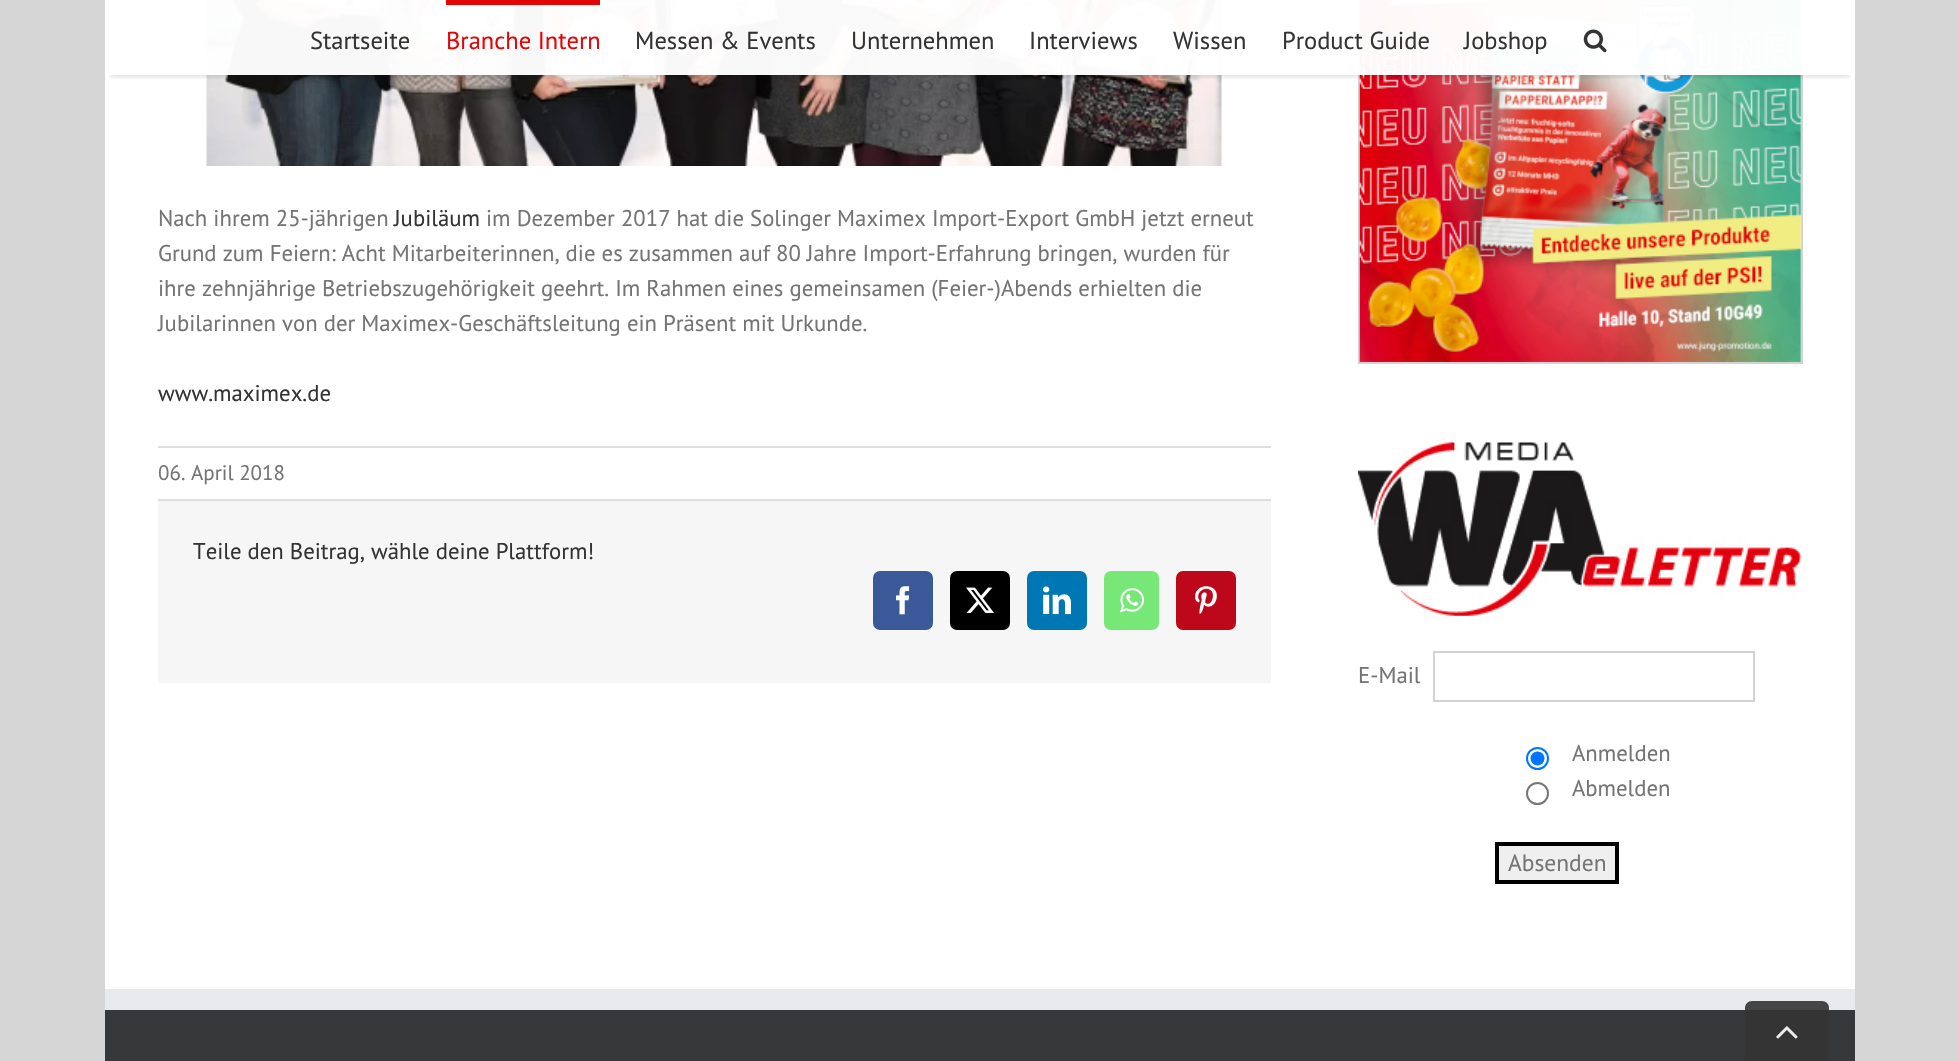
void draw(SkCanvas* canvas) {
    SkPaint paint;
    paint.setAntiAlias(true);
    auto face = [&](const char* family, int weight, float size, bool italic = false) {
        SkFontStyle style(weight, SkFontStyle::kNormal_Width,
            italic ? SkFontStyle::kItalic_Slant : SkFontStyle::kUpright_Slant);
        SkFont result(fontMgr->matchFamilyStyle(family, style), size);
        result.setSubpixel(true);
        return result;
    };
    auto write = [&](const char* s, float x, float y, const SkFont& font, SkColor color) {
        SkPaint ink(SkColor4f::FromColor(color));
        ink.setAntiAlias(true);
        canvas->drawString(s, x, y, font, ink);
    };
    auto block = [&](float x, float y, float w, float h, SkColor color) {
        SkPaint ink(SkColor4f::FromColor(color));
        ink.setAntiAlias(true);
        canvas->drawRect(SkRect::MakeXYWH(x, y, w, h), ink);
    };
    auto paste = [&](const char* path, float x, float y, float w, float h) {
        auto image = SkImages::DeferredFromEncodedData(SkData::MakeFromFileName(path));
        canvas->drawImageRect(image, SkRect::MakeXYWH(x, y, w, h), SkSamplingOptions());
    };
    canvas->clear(SkColorSetRGB(215, 214, 214));
    block(105, 0, 1750, 989, SK_ColorWHITE);
    paste("pic2.png", 206, 0, 1016, 166);
    paint.setStyle(SkPaint::kStroke_Style);
    paint.setStrokeWidth(2);
    paint.setColor(SkColorSetRGB(211, 211, 211));
    canvas->drawRect(SkRect::MakeXYWH(1359, -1, 443, 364), paint);
    paste("pic8.png", 1359, 0, 442, 362);
    canvas->save();
    canvas->clipRect(SkRect::MakeXYWH(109, 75, 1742, 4));
    paint.setStyle(SkPaint::kFill_Style);
    paint.setColor(SkColorSetARGB(31, 0, 0, 0));
    paint.setMaskFilter(SkMaskFilter::MakeBlur(kNormal_SkBlurStyle, 2.5f));
    canvas->drawRect(SkRect::MakeXYWH(110, 12, 1740, 65), paint);
    paint.setMaskFilter(nullptr);
    canvas->restore();
    block(206, 0, 1597, 75, SkColorSetARGB(247, 255, 255, 255));
    auto kFont1 = face("PT Sans", 400, 24.5f);
    write("Startseite", 310, 49, kFont1, SkColorSetRGB(51, 51, 51));
    block(446, 0, 154, 5, SkColorSetRGB(225, 7, 7));
    write("Branche Intern", 446, 49, kFont1, SkColorSetRGB(225, 7, 7));
    write("Messen & Events", 635, 49, kFont1, SkColorSetRGB(51, 51, 51));
    write("Unternehmen", 851, 49, kFont1, SkColorSetRGB(51, 51, 51));
    write("Interviews", 1029, 49, kFont1, SkColorSetRGB(51, 51, 51));
    write("Wissen", 1173, 49, kFont1, SkColorSetRGB(51, 51, 51));
    write("Product Guide", 1282, 49, kFont1, SkColorSetRGB(51, 51, 51));
    write("Jobshop", 1464, 49, kFont1, SkColorSetRGB(51, 51, 51));
    paste("pic1.png", 1583, 29, 24, 24);
    auto kFont2 = face("PT Sans", 400, 22.75f);
    write("Nach ihrem 25-jährigen", 158, 226, kFont2, SkColorSetRGB(116, 116, 116));
    write("Jubiläum", 394, 226, kFont2, SkColorSetRGB(51, 51, 51));
    write("im Dezember 2017 hat die Solinger Maximex Import-Export GmbH jetzt erneut", 486, 226, kFont2, SkColorSetRGB(116, 116, 116));
    write("Grund zum Feiern: Acht Mitarbeiterinnen, die es zusammen auf 80 Jahre Import-Erfahrung bringen, wurden für", 158, 261, kFont2, SkColorSetRGB(116, 116, 116));
    write("ihre zehnjährige Betriebszugehörigkeit geehrt. Im Rahmen eines gemeinsamen (Feier-)Abends erhielten die", 158, 296, kFont2, SkColorSetRGB(116, 116, 116));
    write("Jubilarinnen von der Maximex-Geschäftsleitung ein Präsent mit Urkunde.", 158, 331, kFont2, SkColorSetRGB(116, 116, 116));
    write("www.maximex.de", 158, 401, kFont2, SkColorSetRGB(51, 51, 51));
    block(158, 446, 1113, 2, SkColorSetRGB(224, 222, 222));
    block(158, 499, 1113, 2, SkColorSetRGB(224, 222, 222));
    auto kFont3 = face("PT Sans", 400, 21);
    write("06. April 2018", 158, 480, kFont3, SkColorSetRGB(116, 116, 116));
    block(158, 501, 1113, 182, SkColorSetRGB(246, 246, 246));
    write("Teile den Beitrag, wähle deine Plattform!", 193, 559, kFont2, SkColorSetRGB(51, 51, 51));
    paint.setColor(SkColorSetRGB(59, 89, 152));
    canvas->drawRoundRect(SkRect::MakeXYWH(874, 572, 58, 57), 6, 6, paint);
    paint.setStyle(SkPaint::kStroke_Style);
    canvas->drawRoundRect(SkRect::MakeXYWH(874, 572, 58, 57), 6, 6, paint);
    paste("pic3.png", 896, 586, 14, 29);
    paint.setStyle(SkPaint::kFill_Style);
    paint.setColor(SK_ColorBLACK);
    canvas->drawRoundRect(SkRect::MakeXYWH(951, 572, 58, 57), 6, 6, paint);
    paint.setStyle(SkPaint::kStroke_Style);
    canvas->drawRoundRect(SkRect::MakeXYWH(951, 572, 58, 57), 6, 6, paint);
    paste("pic4.png", 966, 587, 28, 26);
    paint.setStyle(SkPaint::kFill_Style);
    paint.setColor(SkColorSetRGB(0, 119, 181));
    canvas->drawRoundRect(SkRect::MakeXYWH(1028, 572, 58, 57), 6, 6, paint);
    paint.setStyle(SkPaint::kStroke_Style);
    canvas->drawRoundRect(SkRect::MakeXYWH(1028, 572, 58, 57), 6, 6, paint);
    paste("pic5.png", 1043, 586, 28, 29);
    paint.setStyle(SkPaint::kFill_Style);
    paint.setColor(SkColorSetRGB(119, 232, 120));
    canvas->drawRoundRect(SkRect::MakeXYWH(1105, 572, 53, 57), 6, 6, paint);
    paint.setStyle(SkPaint::kStroke_Style);
    canvas->drawRoundRect(SkRect::MakeXYWH(1105, 572, 53, 57), 6, 6, paint);
    paste("pic6.png", 1120, 588, 24, 25);
    paint.setStyle(SkPaint::kFill_Style);
    paint.setColor(SkColorSetRGB(189, 8, 28));
    canvas->drawRoundRect(SkRect::MakeXYWH(1177, 572, 58, 57), 6, 6, paint);
    paint.setStyle(SkPaint::kStroke_Style);
    canvas->drawRoundRect(SkRect::MakeXYWH(1177, 572, 58, 57), 6, 6, paint);
    paste("pic7.png", 1195, 586, 22, 29);
    paste("pic9.png", 1358, 442, 444, 174);
    write("E-Mail", 1358, 683, kFont2, SkColorSetRGB(116, 116, 116));
    paint.setColor(SkColorSetRGB(210, 210, 210));
    canvas->drawRect(SkRect::MakeXYWH(1434, 652, 320, 49), paint);
    paint.setColor(SkColorSetRGB(0, 117, 255));
    canvas->drawCircle(1537.5f, 758.5f, 10.5f, paint);
    paint.setStyle(SkPaint::kFill_Style);
    canvas->drawCircle(1537.5f, 758.5f, 7, paint);
    write("Anmelden", 1572, 761, kFont2, SkColorSetRGB(116, 116, 116));
    paint.setStyle(SkPaint::kStroke_Style);
    paint.setColor(SkColorSetRGB(118, 118, 118));
    canvas->drawCircle(1537.5f, 793.5f, 10.5f, paint);
    write("Abmelden", 1572, 796, kFont2, SkColorSetRGB(116, 116, 116));
    paint.setStyle(SkPaint::kFill_Style);
    paint.setColor(SkColorSetRGB(239, 239, 239));
    canvas->drawRect(SkRect::MakeXYWH(1497, 844, 120, 38), paint);
    paint.setStyle(SkPaint::kStroke_Style);
    paint.setStrokeWidth(4);
    paint.setColor(SK_ColorBLACK);
    canvas->drawRect(SkRect::MakeXYWH(1497, 844, 120, 38), paint);
    auto kFont4 = face("PT Sans", 400, 23.5f);
    write("Absenden", 1508, 871, kFont4, SkColorSetRGB(116, 116, 116));
    block(105, 1010, 1750, 51, SkColorSetRGB(54, 56, 57));
    block(105, 989, 1750, 21, SkColorSetRGB(233, 234, 238));
    paint.setStyle(SkPaint::kFill_Style);
    paint.setColor(SkColorSetARGB(230, 51, 51, 51));
    canvas->drawPath(SkPathBuilder().moveTo(1752, 1001).lineTo(1822, 1001).cubicTo(1826, 1001, 1829, 1004, 1829, 1008).lineTo(1829, 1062).lineTo(1745, 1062).lineTo(1745, 1008).cubicTo(1745, 1004, 1748, 1001, 1752, 1001).close().detach(), paint);
    paste("pic10.png", 1776, 1026, 22, 13);
}
